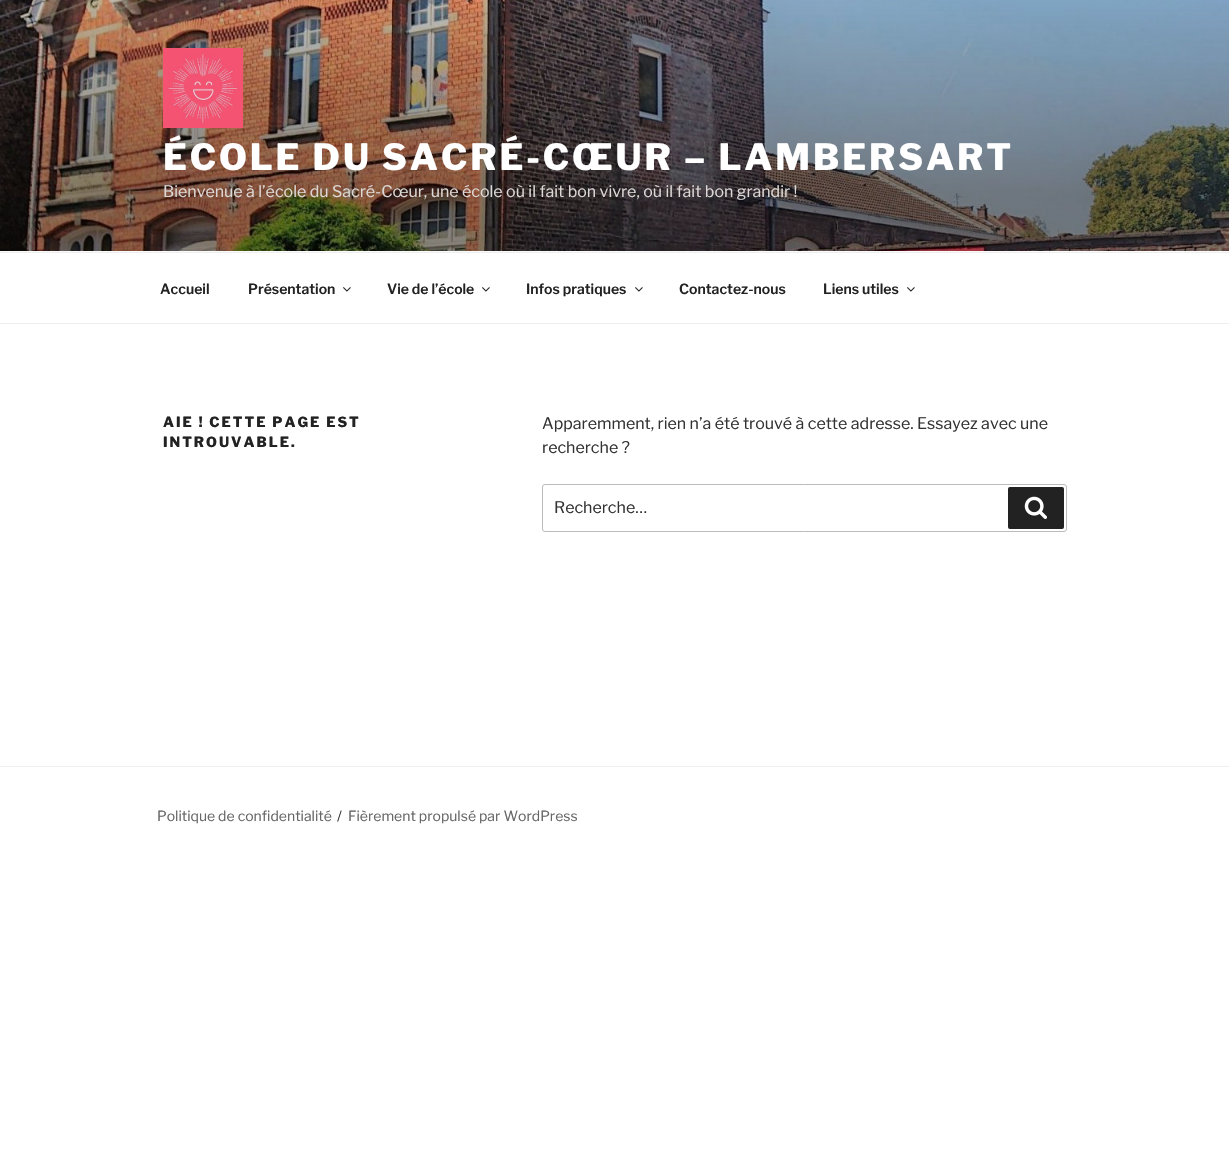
void draw(SkCanvas* canvas) {
    SkPaint paint;
    paint.setAntiAlias(true);
    auto face = [&](const char* family, int weight, float size, bool italic = false) {
        SkFontStyle style(weight, SkFontStyle::kNormal_Width,
            italic ? SkFontStyle::kItalic_Slant : SkFontStyle::kUpright_Slant);
        SkFont result(fontMgr->matchFamilyStyle(family, style), size);
        result.setSubpixel(true);
        return result;
    };
    auto write = [&](const char* s, float x, float y, const SkFont& font, SkColor color) {
        SkPaint ink(SkColor4f::FromColor(color));
        ink.setAntiAlias(true);
        canvas->drawString(s, x, y, font, ink);
    };
    auto writeSpaced = [&](const char* s, float x, float y, const SkFont& font, const SkPaint& ink, float letter, float word) {
        std::vector<SkGlyphID> glyphs(font.countText(s, strlen(s), SkTextEncoding::kUTF8));
        std::vector<float> xs(glyphs.size());
        font.textToGlyphs(s, strlen(s), SkTextEncoding::kUTF8, glyphs);
        font.getXPos(glyphs, xs, x);
        float extra = 0;
        for (size_t i = 0; i < glyphs.size(); i++) {
            xs[i] += extra;
            extra += letter + word * (glyphs[i] == font.unicharToGlyph(' '));
        }
        canvas->drawTextBlob(SkTextBlob::MakeFromPosHGlyphs(glyphs, xs, y, font), 0, 0, ink);
    };
    auto block = [&](float x, float y, float w, float h, SkColor color) {
        SkPaint ink(SkColor4f::FromColor(color));
        ink.setAntiAlias(true);
        canvas->drawRect(SkRect::MakeXYWH(x, y, w, h), ink);
    };
    auto card = [&](float x, float y, float w, float h, float radius, SkColor color) {
        SkPaint ink(SkColor4f::FromColor(color));
        ink.setAntiAlias(true);
        canvas->drawRoundRect(SkRect::MakeXYWH(x, y, w, h), radius, radius, ink);
    };
    auto paste = [&](const char* path, float x, float y, float w, float h) {
        auto image = SkImages::DeferredFromEncodedData(SkData::MakeFromFileName(path));
        canvas->drawImageRect(image, SkRect::MakeXYWH(x, y, w, h), SkSamplingOptions());
    };
    canvas->clear(SK_ColorWHITE);
    block(0, 251, 1229, 1, SkColorSetRGB(250, 250, 250));
    paste("pic1.png", 0, 0, 1229, 251);
    paste("pic2.png", 163, 48, 80, 80);
    auto kFont1 = face("Libre Franklin", 800, 36);
    paint.setColor(SK_ColorWHITE);
    writeSpaced("ÉCOLE DU SACRÉ-CŒUR – LAMBERSART", 163, 170, kFont1, paint, 2.9f, 0);
    auto kFont2 = face("Libre Franklin", 400, 16);
    write("Bienvenue à l’école du Sacré-Cœur, une école où il fait bon vivre, où il fait bon grandir !", 163, 197, kFont2, SkColorSetRGB(220, 216, 214));
    block(0, 252, 1229, 1, SkColorSetRGB(238, 238, 238));
    block(0, 323, 1229, 1, SkColorSetRGB(238, 238, 238));
    auto kFont3 = face("Libre Franklin", 600, 14);
    write("Accueil", 160, 294, kFont3, SkColorSetRGB(34, 34, 34));
    write("Présentation", 248, 294, kFont3, SkColorSetRGB(34, 34, 34));
    paste("pic3.png", 343, 287, 8, 5);
    write("Vie de l’école", 387, 294, kFont3, SkColorSetRGB(34, 34, 34));
    paste("pic3.png", 482, 287, 8, 5);
    write("Infos pratiques", 526, 294, kFont3, SkColorSetRGB(34, 34, 34));
    paste("pic3.png", 635, 287, 8, 5);
    write("Contactez-nous", 679, 294, kFont3, SkColorSetRGB(34, 34, 34));
    write("Liens utiles", 823, 294, kFont3, SkColorSetRGB(34, 34, 34));
    paste("pic3.png", 907, 287, 8, 5);
    auto kFont4 = face("Libre Franklin", 800, 14);
    paint.setColor(SkColorSetRGB(34, 34, 34));
    writeSpaced("AIE ! CETTE PAGE EST", 163, 427, kFont4, paint, 2, 0);
    writeSpaced("INTROUVABLE.", 163, 447, kFont4, paint, 2, 0);
    write("Apparemment, rien n’a été trouvé à cette adresse. Essayez avec une", 542, 429, kFont2, SkColorSetRGB(51, 51, 51));
    write("recherche ?", 542, 453, kFont2, SkColorSetRGB(51, 51, 51));
    paint.setStyle(SkPaint::kStroke_Style);
    paint.setStrokeWidth(1);
    paint.setColor(SkColorSetRGB(187, 187, 187));
    canvas->drawRoundRect(SkRect::MakeXYWH(542.5f, 484.5f, 524, 47), 2.5f, 2.5f, paint);
    write("Recherche…", 554, 513, kFont2, SkColorSetRGB(51, 51, 51));
    card(1008, 487, 56, 42, 2, SkColorSetRGB(34, 34, 34));
    paste("pic4.png", 1024, 496, 23, 23);
    block(0, 766, 1229, 1, SkColorSetRGB(238, 238, 238));
    auto kFont5 = face("Libre Franklin", 400, 14);
    write("Politique de confidentialité", 157, 821, kFont5, SkColorSetRGB(102, 102, 102));
    write("/", 337, 821, kFont5, SkColorSetRGB(51, 51, 51));
    write("Fièrement propulsé par WordPress", 348, 821, kFont5, SkColorSetRGB(102, 102, 102));
}
